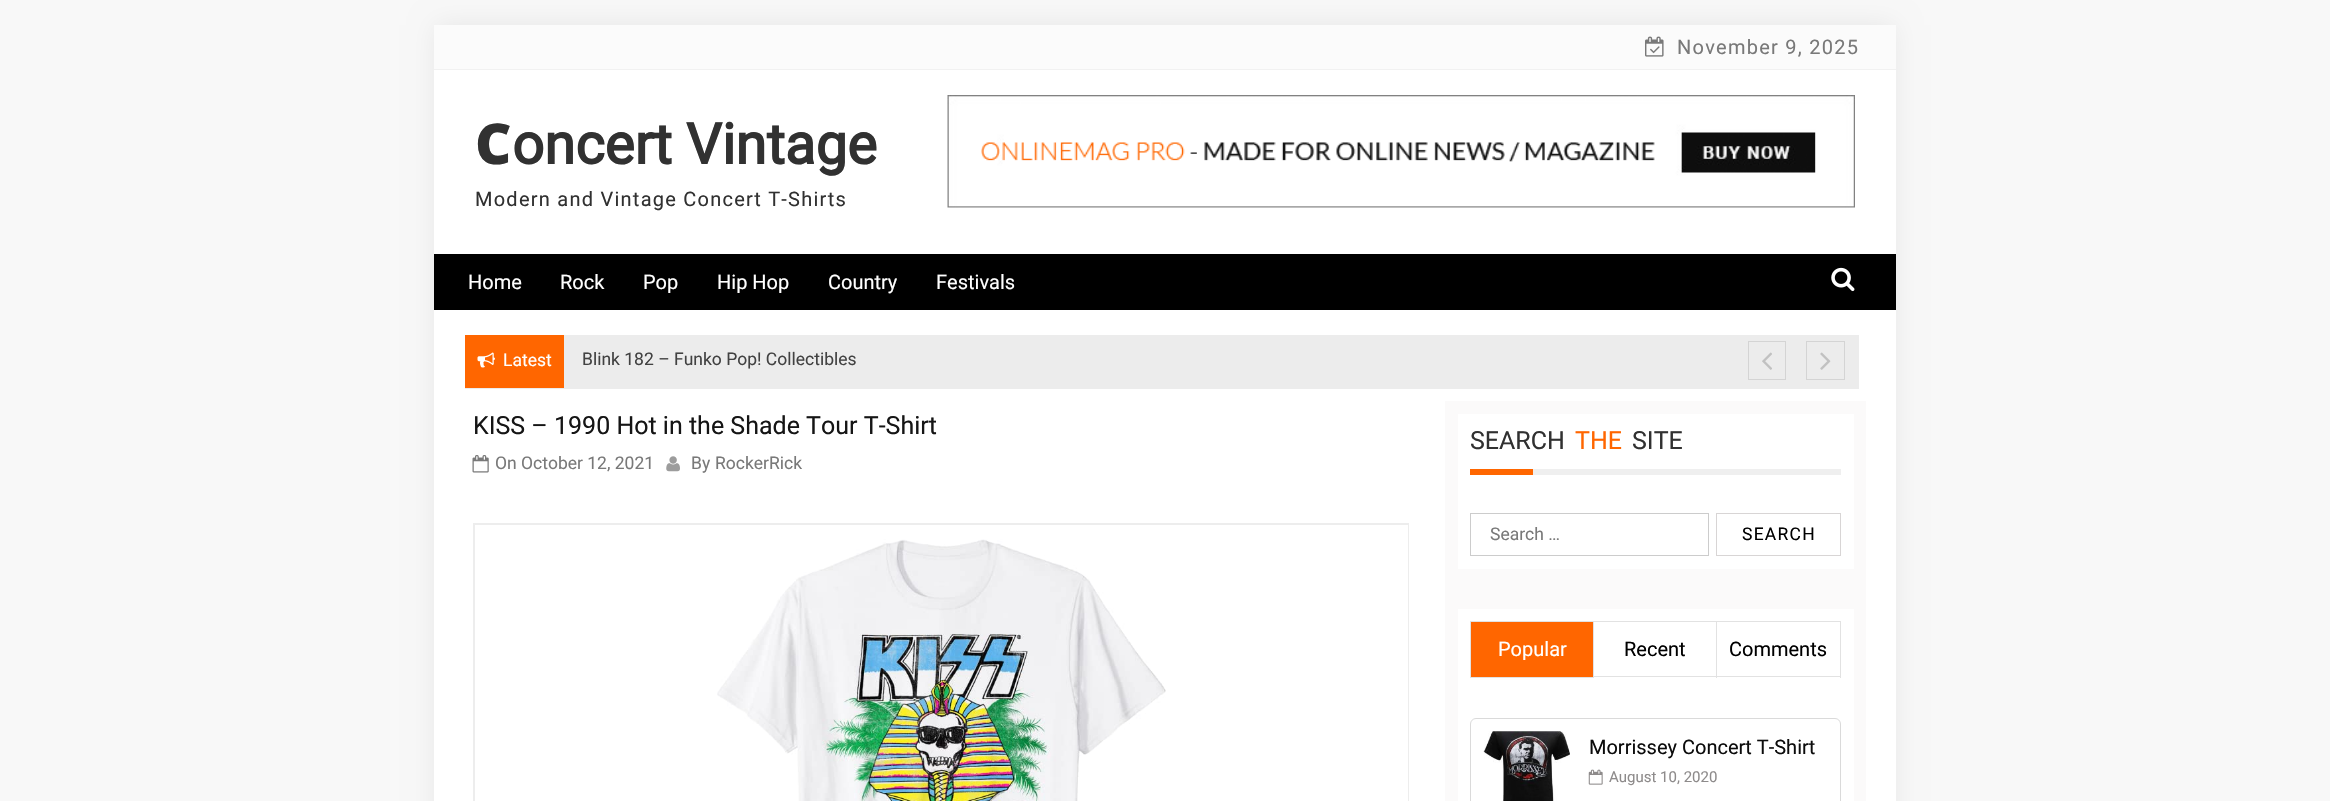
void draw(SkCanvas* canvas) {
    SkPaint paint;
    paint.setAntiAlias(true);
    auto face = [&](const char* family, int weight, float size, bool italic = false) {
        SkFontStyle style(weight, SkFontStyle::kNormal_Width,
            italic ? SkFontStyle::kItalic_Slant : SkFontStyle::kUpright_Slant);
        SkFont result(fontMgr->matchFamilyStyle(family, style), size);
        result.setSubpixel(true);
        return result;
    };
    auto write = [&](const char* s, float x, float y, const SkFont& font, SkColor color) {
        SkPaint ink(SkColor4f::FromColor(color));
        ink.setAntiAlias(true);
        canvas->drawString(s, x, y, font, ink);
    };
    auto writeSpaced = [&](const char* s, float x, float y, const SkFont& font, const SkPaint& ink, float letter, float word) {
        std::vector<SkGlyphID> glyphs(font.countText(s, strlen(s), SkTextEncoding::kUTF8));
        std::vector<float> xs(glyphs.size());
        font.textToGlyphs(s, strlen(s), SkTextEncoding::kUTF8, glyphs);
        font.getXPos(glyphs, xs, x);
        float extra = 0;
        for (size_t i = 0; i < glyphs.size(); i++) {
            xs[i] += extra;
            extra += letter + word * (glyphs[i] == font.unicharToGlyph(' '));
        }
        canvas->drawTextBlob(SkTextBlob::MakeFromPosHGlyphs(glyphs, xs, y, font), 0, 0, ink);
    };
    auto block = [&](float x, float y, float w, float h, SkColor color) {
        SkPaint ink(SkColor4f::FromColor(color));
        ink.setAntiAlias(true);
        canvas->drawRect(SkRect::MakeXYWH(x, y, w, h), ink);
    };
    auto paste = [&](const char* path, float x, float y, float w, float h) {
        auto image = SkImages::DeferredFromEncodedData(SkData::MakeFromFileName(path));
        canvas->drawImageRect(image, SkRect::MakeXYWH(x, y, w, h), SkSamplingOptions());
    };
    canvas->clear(SkColorSetRGB(248, 248, 248));
    paint.setColor(SkColorSetARGB(18, 0, 0, 0));
    paint.setMaskFilter(SkMaskFilter::MakeBlur(kNormal_SkBlurStyle, 12.5f));
    canvas->drawRect(SkRect::MakeXYWH(436, 25, 1458, 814), paint);
    paint.setMaskFilter(nullptr);
    block(434, 70, 1462, 731, SK_ColorWHITE);
    block(434, 25, 1462, 44, SkColorSetRGB(251, 251, 251));
    block(434, 69, 1462, 1, SkColorSetRGB(241, 241, 241));
    paste("pic1.png", 1645, 36, 19, 21);
    auto kFont1 = face("Roboto", 400, 20);
    paint.setColor(SkColorSetRGB(121, 121, 121));
    writeSpaced("November 9, 2025", 1677, 54, kFont1, paint, 1.25f, 0);
    auto kFont2 = face("Noto Sans", 900, 56.25f);
    write("C", 475, 164, kFont2, SkColorSetRGB(49, 49, 49));
    auto kFont3 = face("Roboto", 700, 56.25f);
    write("oncert Vintage", 512, 164, kFont3, SkColorSetRGB(49, 49, 49));
    paint.setColor(SkColorSetRGB(49, 49, 49));
    writeSpaced("Modern and Vintage Concert T-Shirts", 475, 206, kFont1, paint, 1.25f, 0);
    paste("pic2.png", 947, 95, 908, 113);
    block(434, 254, 1462, 56, SK_ColorBLACK);
    write("Home", 468, 289, kFont1, SK_ColorWHITE);
    write("Rock", 560, 289, kFont1, SK_ColorWHITE);
    write("Pop", 643, 289, kFont1, SK_ColorWHITE);
    write("Hip Hop", 717, 289, kFont1, SK_ColorWHITE);
    write("Country", 828, 289, kFont1, SK_ColorWHITE);
    write("Festivals", 936, 289, kFont1, SK_ColorWHITE);
    paste("pic3.png", 1831, 267, 24, 25);
    block(465, 335, 1394, 54, SkColorSetRGB(236, 236, 236));
    block(465, 335, 99, 53, SkColorSetRGB(255, 102, 0));
    paste("pic4.png", 477, 352, 18, 16);
    auto kFont4 = face("Roboto", 400, 17.5f);
    write("Latest", 503, 366, kFont4, SK_ColorWHITE);
    write("Blink 182 – Funko Pop! Collectibles", 582, 365, kFont4, SkColorSetRGB(66, 66, 66));
    paint.setStyle(SkPaint::kStroke_Style);
    paint.setStrokeWidth(1);
    paint.setColor(SkColorSetRGB(212, 212, 212));
    canvas->drawRect(SkRect::MakeXYWH(1748.5f, 341.5f, 37, 38), paint);
    paste("pic5.png", 1762, 352, 10, 18);
    canvas->drawRect(SkRect::MakeXYWH(1806.5f, 341.5f, 38, 38), paint);
    paste("pic6.png", 1820, 352, 11, 18);
    auto kFont5 = face("Roboto", 400, 25);
    write("KISS – 1990 Hot in the Shade Tour T-Shirt", 473, 434, kFont5, SkColorSetRGB(21, 21, 21));
    paste("pic7.png", 472, 455, 17, 18);
    write("On", 495, 469, kFont4, SkColorSetRGB(121, 121, 121));
    write("October 12, 2021", 521, 469, kFont4, SkColorSetRGB(121, 121, 121));
    paste("pic8.png", 666, 456, 14, 16);
    write("By", 691, 469, kFont4, SkColorSetRGB(121, 121, 121));
    write("RockerRick", 715, 469, kFont4, SkColorSetRGB(121, 121, 121));
    block(473, 523, 936, 1, SkColorSetRGB(237, 237, 237));
    block(473, 523, 1, 278, SkColorSetRGB(237, 237, 237));
    paint.setColor(SkColorSetRGB(237, 237, 237));
    canvas->drawRect(SkRect::MakeXYWH(474.5f, 524.5f, 934, 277), paint);
    paste("pic9.png", 717, 539, 449, 262);
    block(1445, 401, 421, 400, SkColorSetRGB(251, 250, 250));
    block(1458, 414, 396, 155, SK_ColorWHITE);
    block(1533, 469, 308, 6, SkColorSetRGB(239, 239, 239));
    write("SEARCH", 1470, 449, kFont5, SkColorSetRGB(49, 49, 49));
    write("THE", 1575, 449, kFont5, SkColorSetRGB(255, 102, 0));
    write("SITE", 1632, 449, kFont5, SkColorSetRGB(49, 49, 49));
    block(1470, 469, 63, 6, SkColorSetRGB(255, 102, 0));
    paint.setColor(SkColorSetRGB(204, 204, 204));
    canvas->drawRect(SkRect::MakeXYWH(1470.5f, 513.5f, 238, 42), paint);
    write("Search …", 1490, 540, kFont4, SkColorSetRGB(121, 121, 121));
    paint.setColor(SkColorSetRGB(216, 213, 213));
    canvas->drawRect(SkRect::MakeXYWH(1716.5f, 513.5f, 124, 42), paint);
    paint.setStyle(SkPaint::kFill_Style);
    paint.setColor(SK_ColorBLACK);
    writeSpaced("SEARCH", 1742, 540, kFont4, paint, 1.25f, 0);
    block(1458, 609, 396, 192, SK_ColorWHITE);
    paint.setColor(SkColorSetRGB(255, 102, 0));
    canvas->drawRect(SkRect::MakeXYWH(1470.5f, 621.5f, 123, 56), paint);
    paint.setStyle(SkPaint::kStroke_Style);
    paint.setColor(SkColorSetRGB(226, 226, 226));
    canvas->drawRect(SkRect::MakeXYWH(1470.5f, 621.5f, 123, 56), paint);
    write("Popular", 1498, 656, kFont1, SK_ColorWHITE);
    block(1594, 621, 247, 1, SkColorSetRGB(226, 226, 226));
    block(1716, 621, 1, 57, SkColorSetRGB(226, 226, 226));
    block(1594, 676, 124, 1, SkColorSetRGB(226, 226, 226));
    write("Recent", 1624, 656, kFont1, SK_ColorBLACK);
    block(1840, 621, 1, 57, SkColorSetRGB(226, 226, 226));
    block(1718, 676, 123, 1, SkColorSetRGB(226, 226, 226));
    write("Comments", 1729, 656, kFont1, SK_ColorBLACK);
    paint.setColor(SkColorSetRGB(218, 218, 218));
    canvas->drawRoundRect(SkRect::MakeXYWH(1470.5f, 718.5f, 370, 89), 5.5f, 5.5f, paint);
    paste("pic10.png", 1483, 731, 87, 70);
    write("Morrissey Concert T-Shirt", 1589, 754, kFont1, SkColorSetRGB(12, 12, 12));
    paste("pic11.png", 1588, 769, 15, 16);
    auto kFont6 = face("Roboto", 400, 15);
    write("August 10, 2020", 1609, 782, kFont6, SkColorSetRGB(142, 139, 139));
}
